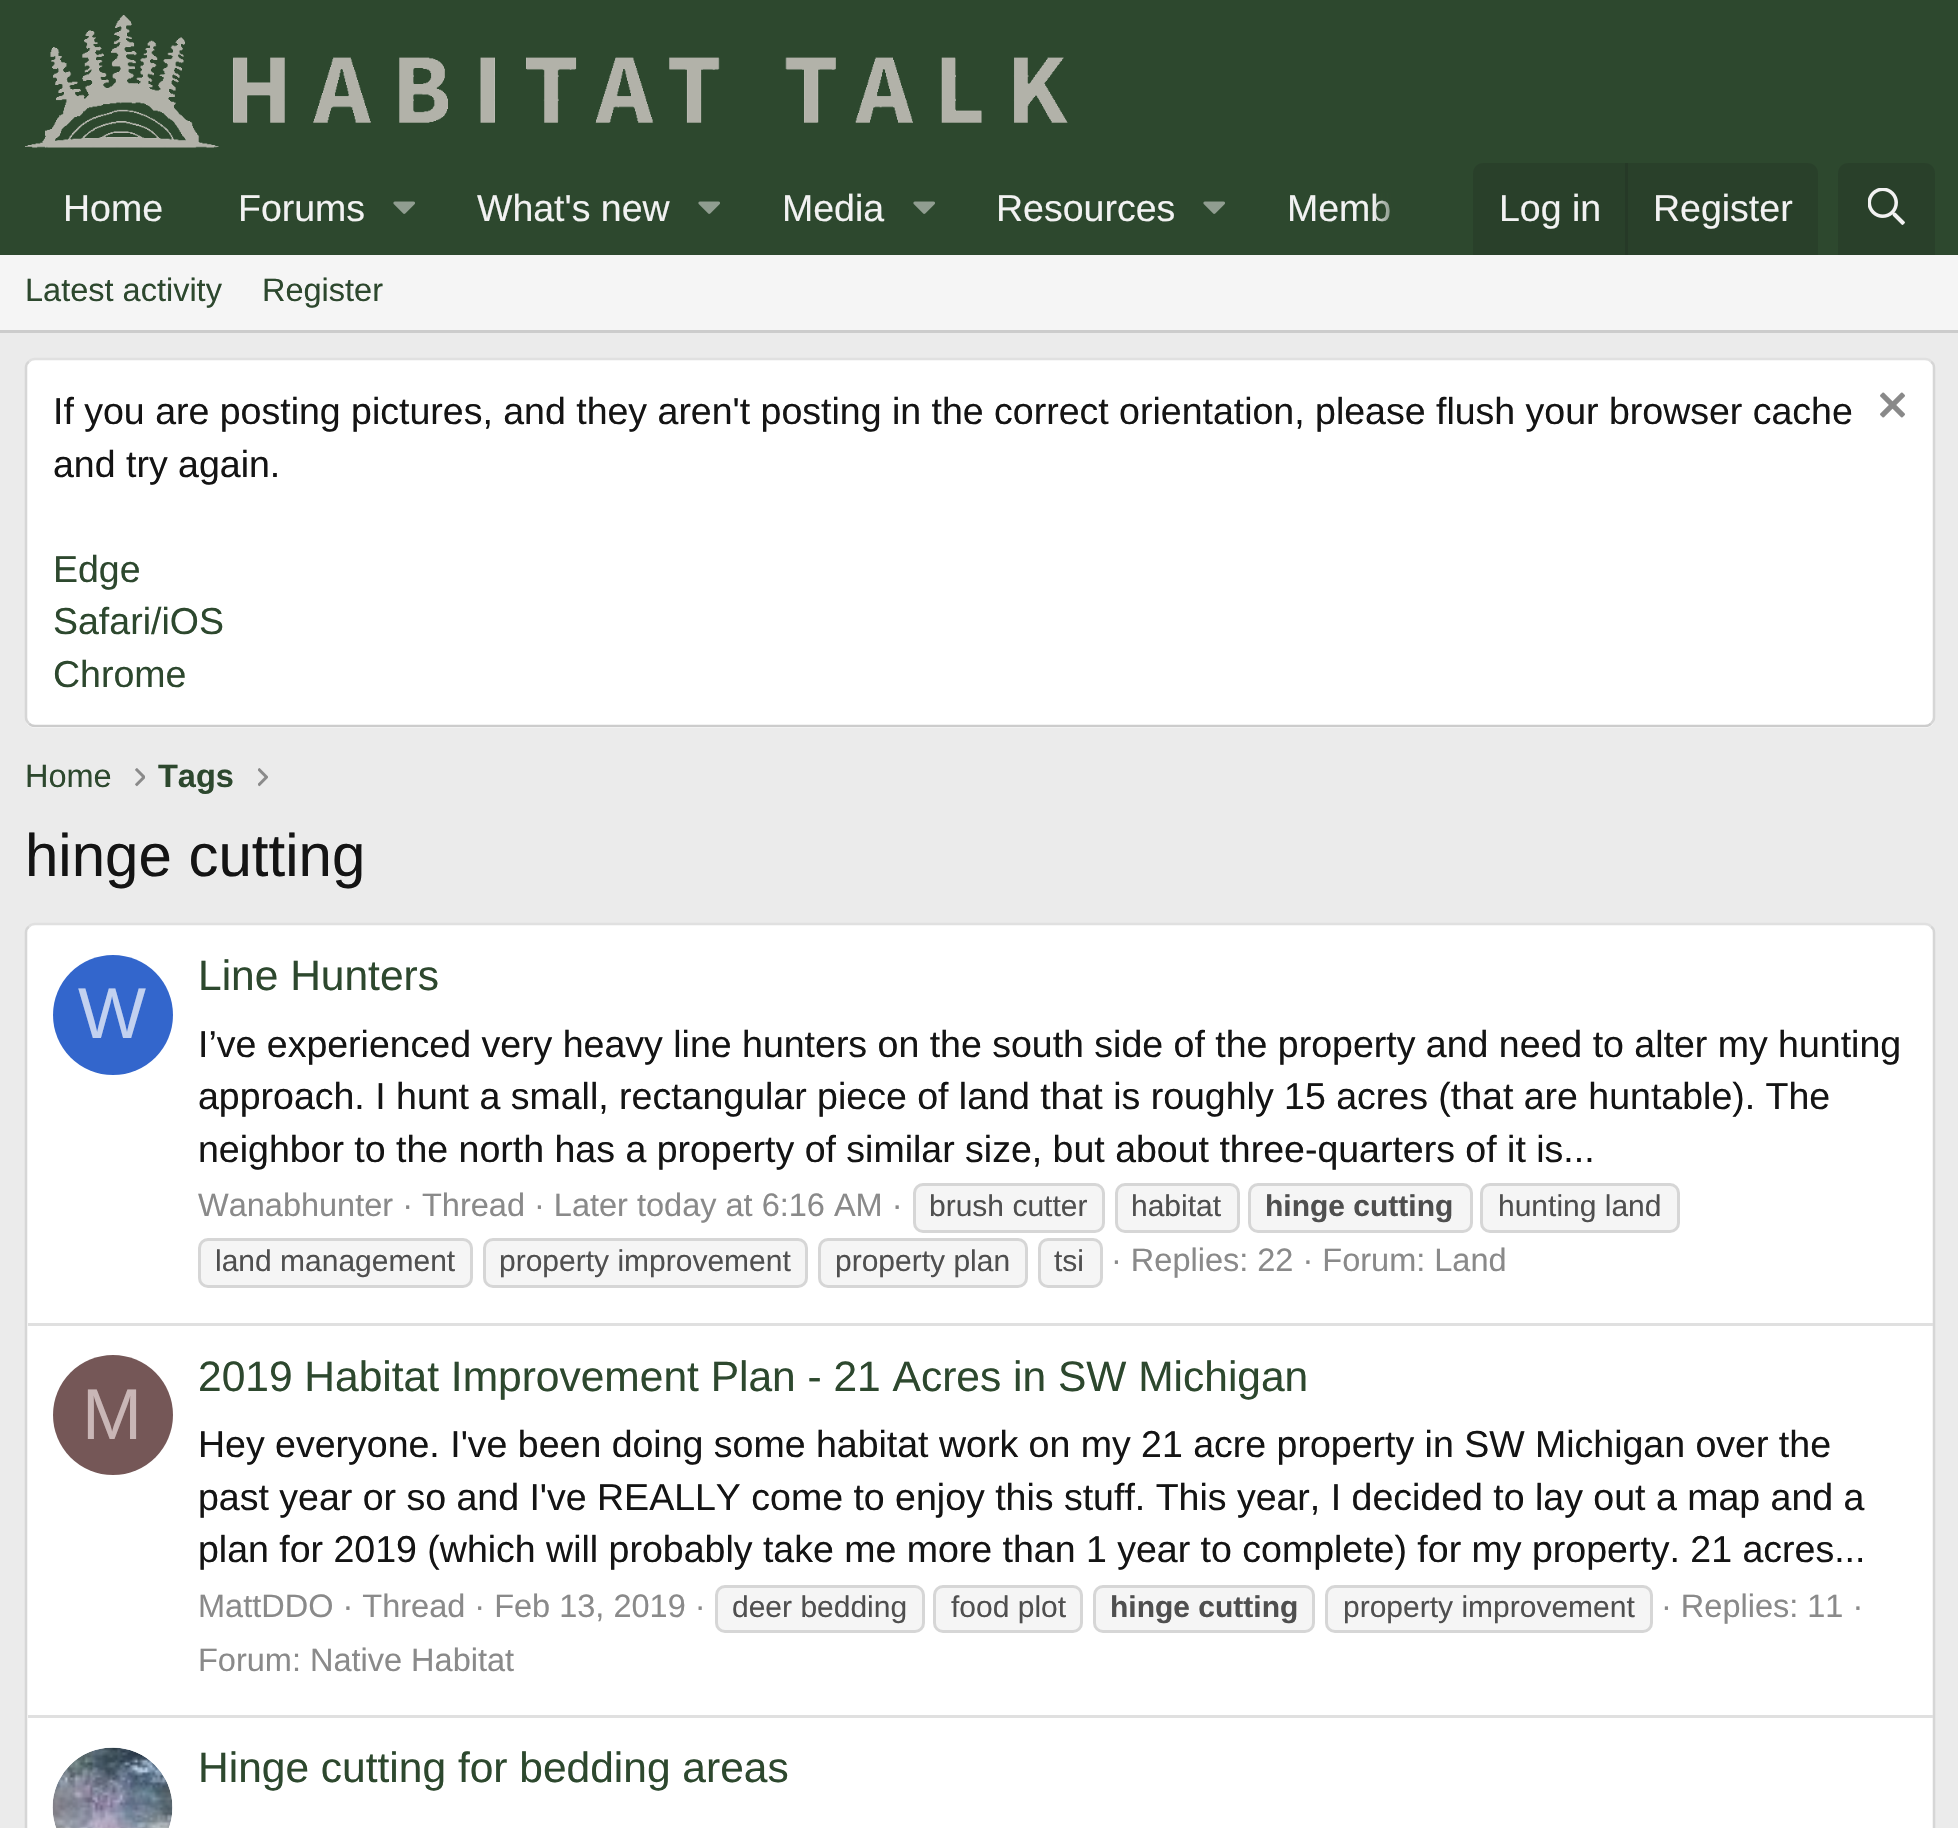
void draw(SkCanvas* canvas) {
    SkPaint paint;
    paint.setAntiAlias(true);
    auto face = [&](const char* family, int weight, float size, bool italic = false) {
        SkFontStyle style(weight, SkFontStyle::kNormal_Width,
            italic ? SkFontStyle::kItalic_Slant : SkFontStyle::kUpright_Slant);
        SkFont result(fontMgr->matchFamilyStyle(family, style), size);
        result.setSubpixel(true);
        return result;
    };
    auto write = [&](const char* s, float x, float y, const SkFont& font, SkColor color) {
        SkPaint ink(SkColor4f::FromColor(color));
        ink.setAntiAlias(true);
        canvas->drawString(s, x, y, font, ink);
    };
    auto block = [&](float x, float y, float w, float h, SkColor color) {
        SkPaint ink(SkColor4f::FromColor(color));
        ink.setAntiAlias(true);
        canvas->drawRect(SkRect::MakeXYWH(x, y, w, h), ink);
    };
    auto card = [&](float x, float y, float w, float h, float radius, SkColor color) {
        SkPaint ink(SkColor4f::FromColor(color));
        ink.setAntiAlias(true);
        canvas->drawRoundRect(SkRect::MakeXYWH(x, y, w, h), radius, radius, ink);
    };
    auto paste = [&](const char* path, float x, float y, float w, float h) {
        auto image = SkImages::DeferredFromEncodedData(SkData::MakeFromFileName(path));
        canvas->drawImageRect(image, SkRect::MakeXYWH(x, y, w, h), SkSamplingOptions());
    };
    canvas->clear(SkColorSetRGB(235, 235, 235));
    block(0, 0, 1958, 255, SkColorSetRGB(45, 72, 46));
    paste("pic1.png", 25, 15, 1043, 133);
    auto kFont1 = face("Liberation Sans", 400, 37.5f);
    write("Home", 63, 221, kFont1, SkColorSetRGB(242, 242, 242));
    write("Forums", 238, 221, kFont1, SkColorSetRGB(242, 242, 242));
    paste("pic2.png", 393, 201, 22, 13);
    write("What's new", 477, 221, kFont1, SkColorSetRGB(242, 242, 242));
    paste("pic2.png", 698, 201, 22, 13);
    write("Media", 782, 221, kFont1, SkColorSetRGB(242, 242, 242));
    paste("pic2.png", 913, 201, 22, 13);
    write("Resources", 996, 221, kFont1, SkColorSetRGB(242, 242, 242));
    paste("pic2.png", 1203, 201, 22, 13);
    write("Memb", 1287, 221, kFont1, SkColorSetRGB(242, 242, 242));
    {
        const SkColor colors[] = {SkColorSetARGB(0, 45, 72, 46), SkColorSetRGB(45, 72, 46)};
        const float stops[] = {0, 0.33f};
        const SkPoint ends[] = {{1373, 209}, {1473, 209}};
        paint.setShader(SkGradientShader::MakeLinear(ends, colors, stops, 2, SkTileMode::kClamp));
        paint.setAlpha(255);
    }
    canvas->drawRect(SkRect::MakeXYWH(1374, 193, 17, 29), paint);
    paint.setShader(nullptr);
    paint.setColor(SkColorSetRGB(41, 64, 42));
    canvas->drawPath(SkPathBuilder().moveTo(1483, 163).lineTo(1808, 163).cubicTo(1813.5f, 163, 1818, 167.5f, 1818, 173).lineTo(1818, 255).lineTo(1473, 255).lineTo(1473, 173).cubicTo(1473, 167.5f, 1477.5f, 163, 1483, 163).close().detach(), paint);
    write("Log in", 1499, 221, kFont1, SkColorSetRGB(242, 242, 242));
    block(1625, 163, 3, 92, SkColorSetRGB(38, 57, 39));
    write("Register", 1653, 221, kFont1, SkColorSetRGB(242, 242, 242));
    canvas->drawPath(SkPathBuilder().moveTo(1848, 163).lineTo(1925, 163).cubicTo(1930.5f, 163, 1935, 167.5f, 1935, 173).lineTo(1935, 255).lineTo(1838, 255).lineTo(1838, 173).cubicTo(1838, 167.5f, 1842.5f, 163, 1848, 163).close().detach(), paint);
    paste("pic3.png", 1868, 188, 37, 37);
    block(0, 255, 1958, 75, SkColorSetRGB(245, 245, 245));
    block(0, 330, 1958, 3, SkColorSetRGB(204, 204, 204));
    auto kFont2 = face("Liberation Sans", 400, 32.5f);
    write("Latest activity", 25, 301, kFont2, SkColorSetRGB(45, 72, 46));
    write("Register", 262, 301, kFont2, SkColorSetRGB(45, 72, 46));
    card(25, 358, 1910, 370, 10, SK_ColorWHITE);
    paint.setStyle(SkPaint::kStroke_Style);
    paint.setStrokeWidth(2.5f);
    paint.setColor(SkColorSetRGB(224, 224, 224));
    canvas->drawPath(SkPathBuilder().moveTo(29, 361.5f).cubicTo(30.5f, 359.5f, 32.5f, 359, 35, 359).lineTo(1925, 359).cubicTo(1927.5f, 359, 1929.5f, 359.5f, 1931, 361.5f).detach(), paint);
    paint.setColor(SkColorSetRGB(214, 214, 214));
    canvas->drawPath(SkPathBuilder().moveTo(1931, 361.5f).cubicTo(1933, 363, 1934, 365, 1934, 367.5f).lineTo(1934, 717.5f).cubicTo(1934, 720, 1933, 722, 1931, 723.5f).detach(), paint);
    paint.setColor(SkColorSetRGB(204, 204, 204));
    canvas->drawPath(SkPathBuilder().moveTo(1931, 723.5f).cubicTo(1929.5f, 725.5f, 1927.5f, 726, 1925, 726).lineTo(35, 726).cubicTo(32.5f, 726, 30.5f, 725.5f, 29, 723.5f).detach(), paint);
    paint.setColor(SkColorSetRGB(214, 214, 214));
    canvas->drawPath(SkPathBuilder().moveTo(29, 723.5f).cubicTo(27, 722, 26, 720, 26, 717.5f).lineTo(26, 367.5f).cubicTo(26, 365, 27, 363, 29, 361.5f).detach(), paint);
    write("If you are posting pictures, and they aren't posting in the correct orientation, please flush your browser cache", 53, 424, kFont1, SkColorSetRGB(20, 20, 20));
    paste("pic4.png", 1880, 392, 25, 26);
    write("and try again.", 53, 477, kFont1, SkColorSetRGB(20, 20, 20));
    write("Edge", 53, 582, kFont1, SkColorSetRGB(45, 72, 46));
    write("Safari/iOS", 53, 634, kFont1, SkColorSetRGB(45, 72, 46));
    write("Chrome", 53, 687, kFont1, SkColorSetRGB(45, 72, 46));
    write("Home", 25, 787, kFont2, SkColorSetRGB(45, 72, 46));
    paste("pic5.png", 135, 768, 10, 19);
    auto kFont3 = face("Liberation Sans", 700, 32.5f);
    write("Tags", 158, 787, kFont3, SkColorSetRGB(45, 72, 46));
    paste("pic6.png", 258, 768, 10, 19);
    auto kFont4 = face("Liberation Sans", 400, 60);
    write("hinge cutting", 25, 876, kFont4, SkColorSetRGB(20, 20, 20));
    card(25, 923, 1910, 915, 10, SK_ColorWHITE);
    paint.setColor(SkColorSetRGB(224, 224, 224));
    canvas->drawPath(SkPathBuilder().moveTo(29, 926.5f).cubicTo(30.5f, 924.5f, 32.5f, 924, 35, 924).lineTo(1925, 924).cubicTo(1927.5f, 924, 1929.5f, 924.5f, 1931, 926.5f).detach(), paint);
    paint.setColor(SkColorSetRGB(214, 214, 214));
    canvas->drawPath(SkPathBuilder().moveTo(1931, 926.5f).cubicTo(1933, 928, 1934, 930, 1934, 932.5f).lineTo(1934, 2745).cubicTo(1934, 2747.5f, 1933, 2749.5f, 1931, 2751).detach(), paint);
    canvas->drawPath(SkPathBuilder().moveTo(29, 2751).cubicTo(27, 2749.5f, 26, 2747.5f, 26, 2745).lineTo(26, 932.5f).cubicTo(26, 930, 27, 928, 29, 926.5f).detach(), paint);
    paint.setStyle(SkPaint::kFill_Style);
    paint.setColor(SkColorSetRGB(51, 102, 204));
    canvas->drawCircle(113, 1015, 60, paint);
    auto kFont5 = face("Liberation Sans", 400, 72);
    write("W", 78, 1038, kFont5, SkColorSetRGB(194, 209, 240));
    auto kFont6 = face("Liberation Sans", 400, 42.5f);
    write("Line Hunters", 198, 990, kFont6, SkColorSetRGB(45, 72, 46));
    write("I’ve experienced very heavy line hunters on the south side of the property and need to alter my hunting", 198, 1057, kFont1, SkColorSetRGB(20, 20, 20));
    write("approach. I hunt a small, rectangular piece of land that is roughly 15 acres (that are huntable). The", 198, 1109, kFont1, SkColorSetRGB(20, 20, 20));
    write("neighbor to the north has a property of similar size, but about three-quarters of it is...", 198, 1162, kFont1, SkColorSetRGB(20, 20, 20));
    write("Wanabhunter · Thread · Later today at 6:16 AM ·", 198, 1216, kFont2, SkColorSetRGB(138, 138, 138));
    paint.setColor(SkColorSetRGB(245, 245, 245));
    canvas->drawRoundRect(SkRect::MakeXYWH(914.5f, 1184.5f, 189, 47), 8.5f, 8.5f, paint);
    paint.setStyle(SkPaint::kStroke_Style);
    paint.setStrokeWidth(3);
    paint.setColor(SkColorSetRGB(214, 214, 214));
    canvas->drawRoundRect(SkRect::MakeXYWH(914.5f, 1184.5f, 189, 47), 8.5f, 8.5f, paint);
    auto kFont7 = face("Liberation Sans", 400, 30);
    write("brush cutter", 929, 1216, kFont7, SkColorSetRGB(79, 79, 79));
    paint.setStyle(SkPaint::kFill_Style);
    paint.setColor(SkColorSetRGB(245, 245, 245));
    canvas->drawRoundRect(SkRect::MakeXYWH(1116.5f, 1184.5f, 122, 47), 8.5f, 8.5f, paint);
    paint.setStyle(SkPaint::kStroke_Style);
    paint.setColor(SkColorSetRGB(214, 214, 214));
    canvas->drawRoundRect(SkRect::MakeXYWH(1116.5f, 1184.5f, 122, 47), 8.5f, 8.5f, paint);
    write("habitat", 1131, 1216, kFont7, SkColorSetRGB(79, 79, 79));
    paint.setStyle(SkPaint::kFill_Style);
    paint.setColor(SkColorSetRGB(245, 245, 245));
    canvas->drawRoundRect(SkRect::MakeXYWH(1249.5f, 1184.5f, 222, 47), 8.5f, 8.5f, paint);
    paint.setStyle(SkPaint::kStroke_Style);
    paint.setColor(SkColorSetRGB(214, 214, 214));
    canvas->drawRoundRect(SkRect::MakeXYWH(1249.5f, 1184.5f, 222, 47), 8.5f, 8.5f, paint);
    auto kFont8 = face("Liberation Sans", 700, 30);
    write("hinge cutting", 1265, 1216, kFont8, SkColorSetRGB(79, 79, 79));
    paint.setStyle(SkPaint::kFill_Style);
    paint.setColor(SkColorSetRGB(245, 245, 245));
    canvas->drawRoundRect(SkRect::MakeXYWH(1481.5f, 1184.5f, 197, 47), 8.5f, 8.5f, paint);
    paint.setStyle(SkPaint::kStroke_Style);
    paint.setColor(SkColorSetRGB(214, 214, 214));
    canvas->drawRoundRect(SkRect::MakeXYWH(1481.5f, 1184.5f, 197, 47), 8.5f, 8.5f, paint);
    write("hunting land", 1498, 1216, kFont7, SkColorSetRGB(79, 79, 79));
    paint.setStyle(SkPaint::kFill_Style);
    paint.setColor(SkColorSetRGB(245, 245, 245));
    canvas->drawRoundRect(SkRect::MakeXYWH(199.5f, 1239.5f, 272, 47), 8.5f, 8.5f, paint);
    paint.setStyle(SkPaint::kStroke_Style);
    paint.setColor(SkColorSetRGB(214, 214, 214));
    canvas->drawRoundRect(SkRect::MakeXYWH(199.5f, 1239.5f, 272, 47), 8.5f, 8.5f, paint);
    write("land management", 215, 1271, kFont7, SkColorSetRGB(79, 79, 79));
    paint.setStyle(SkPaint::kFill_Style);
    paint.setColor(SkColorSetRGB(245, 245, 245));
    canvas->drawRoundRect(SkRect::MakeXYWH(484.5f, 1239.5f, 322, 47), 8.5f, 8.5f, paint);
    paint.setStyle(SkPaint::kStroke_Style);
    paint.setColor(SkColorSetRGB(214, 214, 214));
    canvas->drawRoundRect(SkRect::MakeXYWH(484.5f, 1239.5f, 322, 47), 8.5f, 8.5f, paint);
    write("property improvement", 499, 1271, kFont7, SkColorSetRGB(79, 79, 79));
    paint.setStyle(SkPaint::kFill_Style);
    paint.setColor(SkColorSetRGB(245, 245, 245));
    canvas->drawRoundRect(SkRect::MakeXYWH(819.5f, 1239.5f, 207, 47), 8.5f, 8.5f, paint);
    paint.setStyle(SkPaint::kStroke_Style);
    paint.setColor(SkColorSetRGB(214, 214, 214));
    canvas->drawRoundRect(SkRect::MakeXYWH(819.5f, 1239.5f, 207, 47), 8.5f, 8.5f, paint);
    write("property plan", 835, 1271, kFont7, SkColorSetRGB(79, 79, 79));
    paint.setStyle(SkPaint::kFill_Style);
    paint.setColor(SkColorSetRGB(245, 245, 245));
    canvas->drawRoundRect(SkRect::MakeXYWH(1039.5f, 1239.5f, 62, 47), 8.5f, 8.5f, paint);
    paint.setStyle(SkPaint::kStroke_Style);
    paint.setColor(SkColorSetRGB(214, 214, 214));
    canvas->drawRoundRect(SkRect::MakeXYWH(1039.5f, 1239.5f, 62, 47), 8.5f, 8.5f, paint);
    write("tsi", 1054, 1271, kFont7, SkColorSetRGB(79, 79, 79));
    write("· Replies: 22 · Forum: Land", 1111, 1271, kFont2, SkColorSetRGB(138, 138, 138));
    block(28, 1323, 1905, 3, SkColorSetRGB(224, 224, 224));
    paint.setStyle(SkPaint::kFill_Style);
    paint.setColor(SkColorSetRGB(117, 87, 87));
    canvas->drawCircle(113, 1415, 60, paint);
    write("M", 82, 1439, kFont5, SkColorSetRGB(201, 182, 182));
    write("2019 Habitat Improvement Plan - 21 Acres in SW Michigan", 198, 1391, kFont6, SkColorSetRGB(45, 72, 46));
    write("Hey everyone. I've been doing some habitat work on my 21 acre property in SW Michigan over the", 198, 1457, kFont1, SkColorSetRGB(20, 20, 20));
    write("past year or so and I've REALLY come to enjoy this stuff. This year, I decided to lay out a map and a", 198, 1510, kFont1, SkColorSetRGB(20, 20, 20));
    write("plan for 2019 (which will probably take me more than 1 year to complete) for my property. 21 acres...", 198, 1562, kFont1, SkColorSetRGB(20, 20, 20));
    write("MattDDO · Thread · Feb 13, 2019 ·", 198, 1617, kFont2, SkColorSetRGB(138, 138, 138));
    paint.setColor(SkColorSetRGB(245, 245, 245));
    canvas->drawRoundRect(SkRect::MakeXYWH(716.5f, 1586.5f, 207, 45), 8.5f, 8.5f, paint);
    paint.setStyle(SkPaint::kStroke_Style);
    paint.setColor(SkColorSetRGB(214, 214, 214));
    canvas->drawRoundRect(SkRect::MakeXYWH(716.5f, 1586.5f, 207, 45), 8.5f, 8.5f, paint);
    write("deer bedding", 732, 1617, kFont7, SkColorSetRGB(79, 79, 79));
    paint.setStyle(SkPaint::kFill_Style);
    paint.setColor(SkColorSetRGB(245, 245, 245));
    canvas->drawRoundRect(SkRect::MakeXYWH(934.5f, 1586.5f, 147, 45), 8.5f, 8.5f, paint);
    paint.setStyle(SkPaint::kStroke_Style);
    paint.setColor(SkColorSetRGB(214, 214, 214));
    canvas->drawRoundRect(SkRect::MakeXYWH(934.5f, 1586.5f, 147, 45), 8.5f, 8.5f, paint);
    write("food plot", 951, 1617, kFont7, SkColorSetRGB(79, 79, 79));
    paint.setStyle(SkPaint::kFill_Style);
    paint.setColor(SkColorSetRGB(245, 245, 245));
    canvas->drawRoundRect(SkRect::MakeXYWH(1094.5f, 1586.5f, 219, 45), 8.5f, 8.5f, paint);
    paint.setStyle(SkPaint::kStroke_Style);
    paint.setColor(SkColorSetRGB(214, 214, 214));
    canvas->drawRoundRect(SkRect::MakeXYWH(1094.5f, 1586.5f, 219, 45), 8.5f, 8.5f, paint);
    write("hinge cutting", 1110, 1617, kFont8, SkColorSetRGB(79, 79, 79));
    paint.setStyle(SkPaint::kFill_Style);
    paint.setColor(SkColorSetRGB(245, 245, 245));
    canvas->drawRoundRect(SkRect::MakeXYWH(1326.5f, 1586.5f, 325, 45), 8.5f, 8.5f, paint);
    paint.setStyle(SkPaint::kStroke_Style);
    paint.setColor(SkColorSetRGB(214, 214, 214));
    canvas->drawRoundRect(SkRect::MakeXYWH(1326.5f, 1586.5f, 325, 45), 8.5f, 8.5f, paint);
    write("property improvement", 1343, 1617, kFont7, SkColorSetRGB(79, 79, 79));
    write("· Replies: 11 ·", 1661, 1617, kFont2, SkColorSetRGB(138, 138, 138));
    write("Forum: Native Habitat", 198, 1671, kFont2, SkColorSetRGB(138, 138, 138));
    block(28, 1715, 1905, 3, SkColorSetRGB(224, 224, 224));
    paste("pic7.png", 52, 1747, 121, 81);
    write("Hinge cutting for bedding areas", 198, 1782, kFont6, SkColorSetRGB(45, 72, 46));
}
